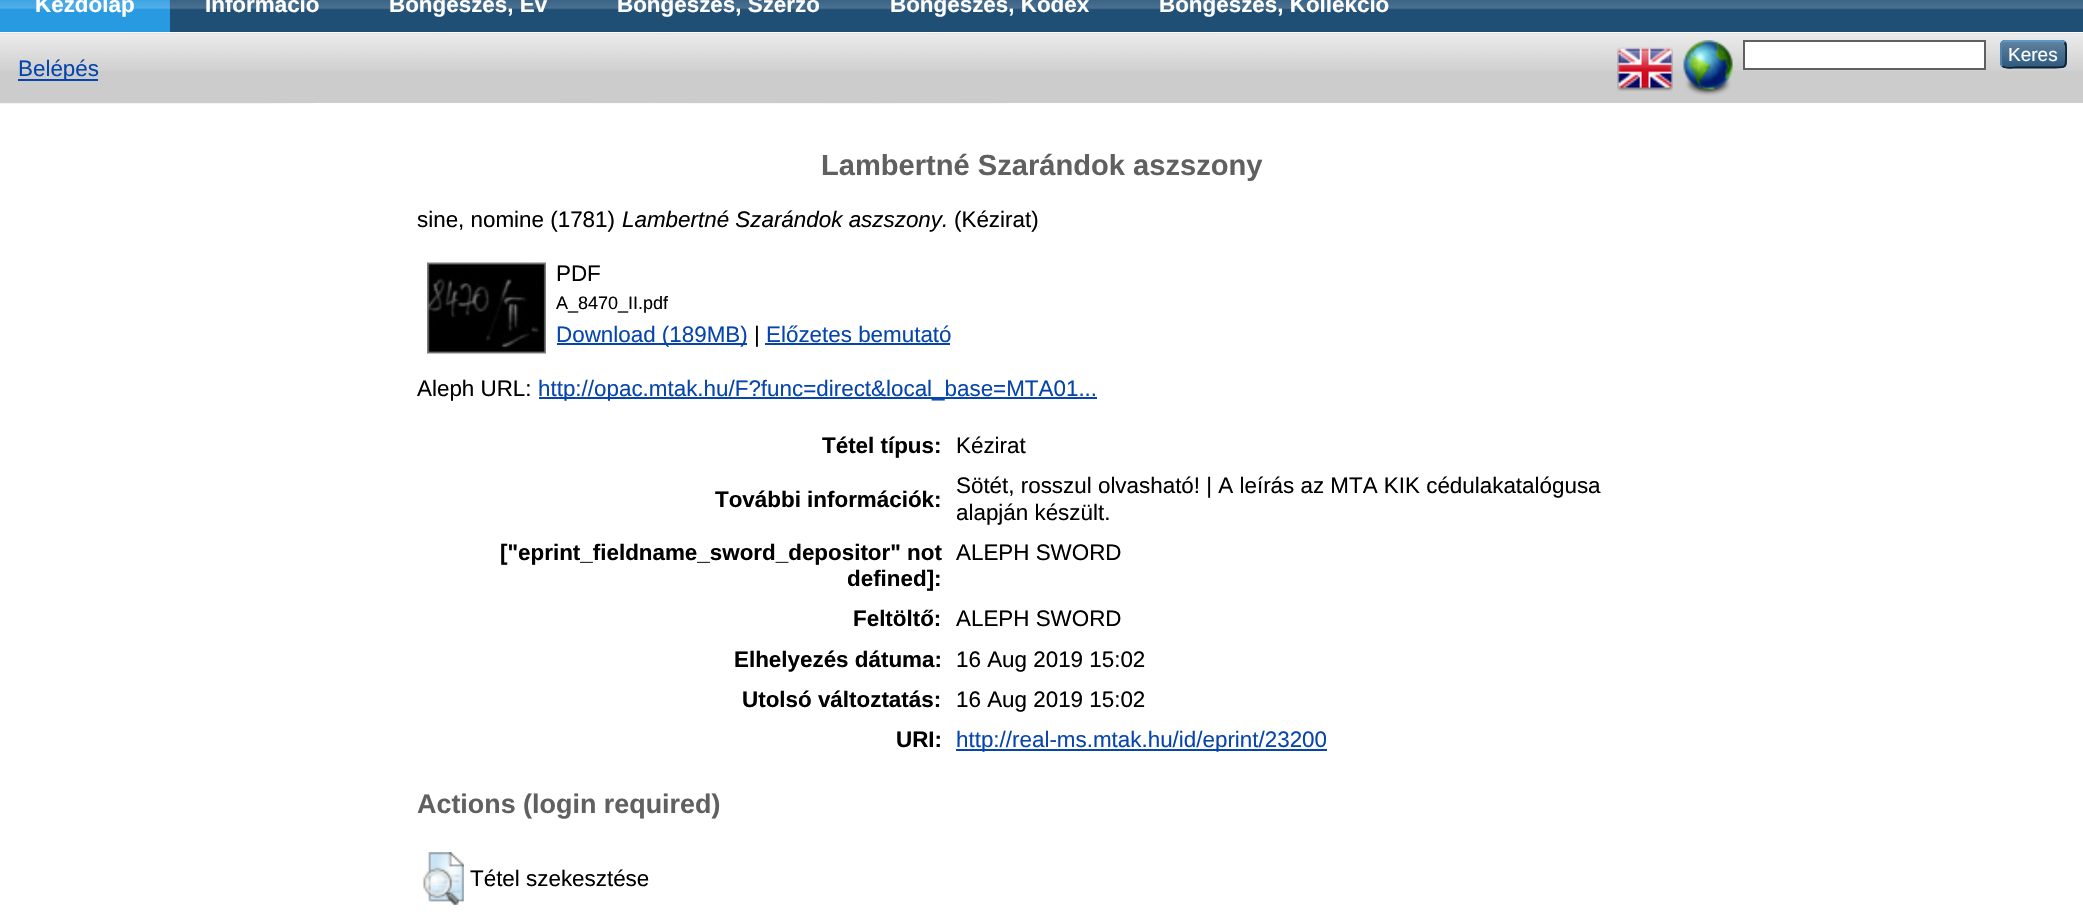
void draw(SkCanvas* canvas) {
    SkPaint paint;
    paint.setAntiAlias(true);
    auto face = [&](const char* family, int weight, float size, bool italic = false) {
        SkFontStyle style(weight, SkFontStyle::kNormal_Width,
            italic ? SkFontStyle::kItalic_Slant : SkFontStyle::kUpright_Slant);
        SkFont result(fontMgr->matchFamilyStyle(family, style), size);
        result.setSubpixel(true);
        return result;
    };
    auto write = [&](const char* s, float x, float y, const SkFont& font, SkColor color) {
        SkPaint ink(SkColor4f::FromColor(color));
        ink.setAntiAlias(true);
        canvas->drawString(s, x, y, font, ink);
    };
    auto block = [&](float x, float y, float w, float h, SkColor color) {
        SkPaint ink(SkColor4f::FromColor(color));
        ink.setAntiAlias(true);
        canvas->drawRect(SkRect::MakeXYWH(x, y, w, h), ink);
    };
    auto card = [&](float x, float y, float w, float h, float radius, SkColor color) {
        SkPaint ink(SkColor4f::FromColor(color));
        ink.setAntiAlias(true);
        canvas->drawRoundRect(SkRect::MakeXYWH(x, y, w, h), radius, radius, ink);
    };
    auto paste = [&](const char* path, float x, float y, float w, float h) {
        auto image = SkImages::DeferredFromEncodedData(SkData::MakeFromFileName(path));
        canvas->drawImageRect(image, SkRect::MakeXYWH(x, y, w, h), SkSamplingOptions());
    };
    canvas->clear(SK_ColorWHITE);
    paste("pic1.png", 0, 103, 1007, 1);
    block(170, 0, 1913, 32, SkColorSetRGB(32, 79, 118));
    paste("pic2.png", 170, 0, 1913, 10);
    block(0, 0, 170, 32, SkColorSetRGB(39, 154, 226));
    paste("pic3.png", 0, 0, 170, 10);
    auto kFont1 = face("Liberation Sans", 700, 22.4f);
    write("Kezdőlap", 35, 12, kFont1, SK_ColorWHITE);
    write("Információ", 205, 12, kFont1, SK_ColorWHITE);
    write("Böngészés, Év", 389, 12, kFont1, SK_ColorWHITE);
    write("Böngészés, Szerző", 617, 12, kFont1, SK_ColorWHITE);
    write("Böngészés, Kódex", 890, 12, kFont1, SK_ColorWHITE);
    write("Böngészés, Kollekció", 1159, 12, kFont1, SK_ColorWHITE);
    block(0, 33, 2083, 70, SkColorSetRGB(204, 204, 204));
    paste("pic4.png", 0, 33, 2083, 38);
    paste("pic5.png", 1617, 47, 56, 45);
    paste("pic6.png", 1683, 40, 50, 56);
    paint.setColor(SK_ColorWHITE);
    canvas->drawRect(SkRect::MakeXYWH(1744, 41, 241, 28), paint);
    paint.setStyle(SkPaint::kStroke_Style);
    paint.setStrokeWidth(2);
    paint.setColor(SkColorSetRGB(96, 96, 96));
    canvas->drawRect(SkRect::MakeXYWH(1744, 41, 241, 28), paint);
    card(2000, 40, 67, 28, 5, SkColorSetRGB(31, 79, 118));
    paste("pic7.png", 2000, 40, 67, 28);
    paint.setStrokeWidth(1.8f);
    paint.setColor(SkColorSetRGB(91, 151, 199));
    canvas->drawPath(SkPathBuilder().moveTo(2002.5f, 42.5f).cubicTo(2003, 41.5f, 2004.5f, 41, 2005.5f, 41).lineTo(2061.5f, 41).cubicTo(2062.5f, 41, 2064, 41.5f, 2064.5f, 42.5f).detach(), paint);
    paint.setColor(SkColorSetRGB(13, 33, 49));
    canvas->drawPath(SkPathBuilder().moveTo(2064.5f, 42.5f).cubicTo(2067, 45, 2066, 51, 2066, 54).cubicTo(2066, 68.5f, 2067, 67.5f, 2052, 67.5f).lineTo(2015, 67.5f).cubicTo(2013, 67.5f, 2005, 69, 2002.5f, 66).detach(), paint);
    paint.setColor(SkColorSetRGB(82, 135, 179));
    canvas->drawPath(SkPathBuilder().moveTo(2002.5f, 66).cubicTo(2001.5f, 65.5f, 2001, 64, 2001, 63).lineTo(2001, 45.5f).cubicTo(2001, 44.5f, 2001.5f, 43, 2002.5f, 42.5f).detach(), paint);
    auto kFont2 = face("Liberation Sans", 400, 19);
    write("Keres", 2008, 61, kFont2, SK_ColorWHITE);
    block(18, 79, 80, 2, SkColorSetRGB(6, 69, 173));
    auto kFont3 = face("Liberation Sans", 400, 22.4f);
    write("Belépés", 18, 76, kFont3, SkColorSetRGB(6, 69, 173));
    auto kFont4 = face("Liberation Sans", 700, 29.1f);
    write("Lambertné Szarándok aszszony", 821, 175, kFont4, SkColorSetRGB(96, 96, 96));
    write("sine, nomine (1781)", 417, 227, kFont3, SK_ColorBLACK);
    auto kFont5 = face("Liberation Sans", 400, 22.4f, true);
    write("Lambertné Szarándok aszszony.", 622, 227, kFont5, SK_ColorBLACK);
    write("(Kézirat)", 954, 227, kFont3, SK_ColorBLACK);
    paste("pic8.png", 427, 262, 119, 92);
    write("PDF", 556, 281, kFont3, SK_ColorBLACK);
    auto kFont6 = face("Liberation Sans", 400, 18);
    write("A_8470_II.pdf", 556, 309, kFont6, SK_ColorBLACK);
    block(557, 343, 190, 2, SkColorSetRGB(6, 69, 173));
    write("Download (189MB)", 556, 342, kFont3, SkColorSetRGB(6, 69, 173));
    write("|", 754, 342, kFont3, SK_ColorBLACK);
    write("Előzetes bemutató", 766, 342, kFont3, SkColorSetRGB(6, 69, 173));
    block(765, 343, 185, 2, SkColorSetRGB(6, 69, 173));
    write("Aleph URL:", 417, 396, kFont3, SK_ColorBLACK);
    block(539, 397, 558, 2, SkColorSetRGB(6, 69, 173));
    write("http://opac.mtak.hu/F?func=direct&local_base=MTA01...", 538, 396, kFont3, SkColorSetRGB(6, 69, 173));
    write("Tétel típus:", 822, 453, kFont1, SK_ColorBLACK);
    write("Kézirat", 956, 453, kFont3, SK_ColorBLACK);
    write("További információk:", 715, 507, kFont1, SK_ColorBLACK);
    write("Sötét, rosszul olvasható! | A leírás az MTA KIK cédulakatalógusa", 956, 493, kFont3, SK_ColorBLACK);
    write("alapján készült.", 956, 520, kFont3, SK_ColorBLACK);
    write("[\"eprint_fieldname_sword_depositor\" not", 500, 560, kFont1, SK_ColorBLACK);
    write("defined]:", 847, 586, kFont1, SK_ColorBLACK);
    write("ALEPH SWORD", 956, 560, kFont3, SK_ColorBLACK);
    write("Feltöltő:", 853, 626, kFont1, SK_ColorBLACK);
    write("ALEPH SWORD", 956, 626, kFont3, SK_ColorBLACK);
    write("Elhelyezés dátuma:", 734, 667, kFont1, SK_ColorBLACK);
    write("16 Aug 2019 15:02", 956, 667, kFont3, SK_ColorBLACK);
    write("Utolsó változtatás:", 742, 707, kFont1, SK_ColorBLACK);
    write("16 Aug 2019 15:02", 956, 707, kFont3, SK_ColorBLACK);
    write("URI:", 896, 747, kFont1, SK_ColorBLACK);
    block(956, 749, 371, 2, SkColorSetRGB(6, 69, 173));
    write("http://real-ms.mtak.hu/id/eprint/23200", 956, 747, kFont3, SkColorSetRGB(6, 69, 173));
    auto kFont7 = face("Liberation Sans", 700, 26.9f);
    write("Actions (login required)", 417, 813, kFont7, SkColorSetRGB(96, 96, 96));
    paste("pic9.png", 423, 852, 41, 53);
    write("Tétel szekesztése", 470, 886, kFont3, SK_ColorBLACK);
}
